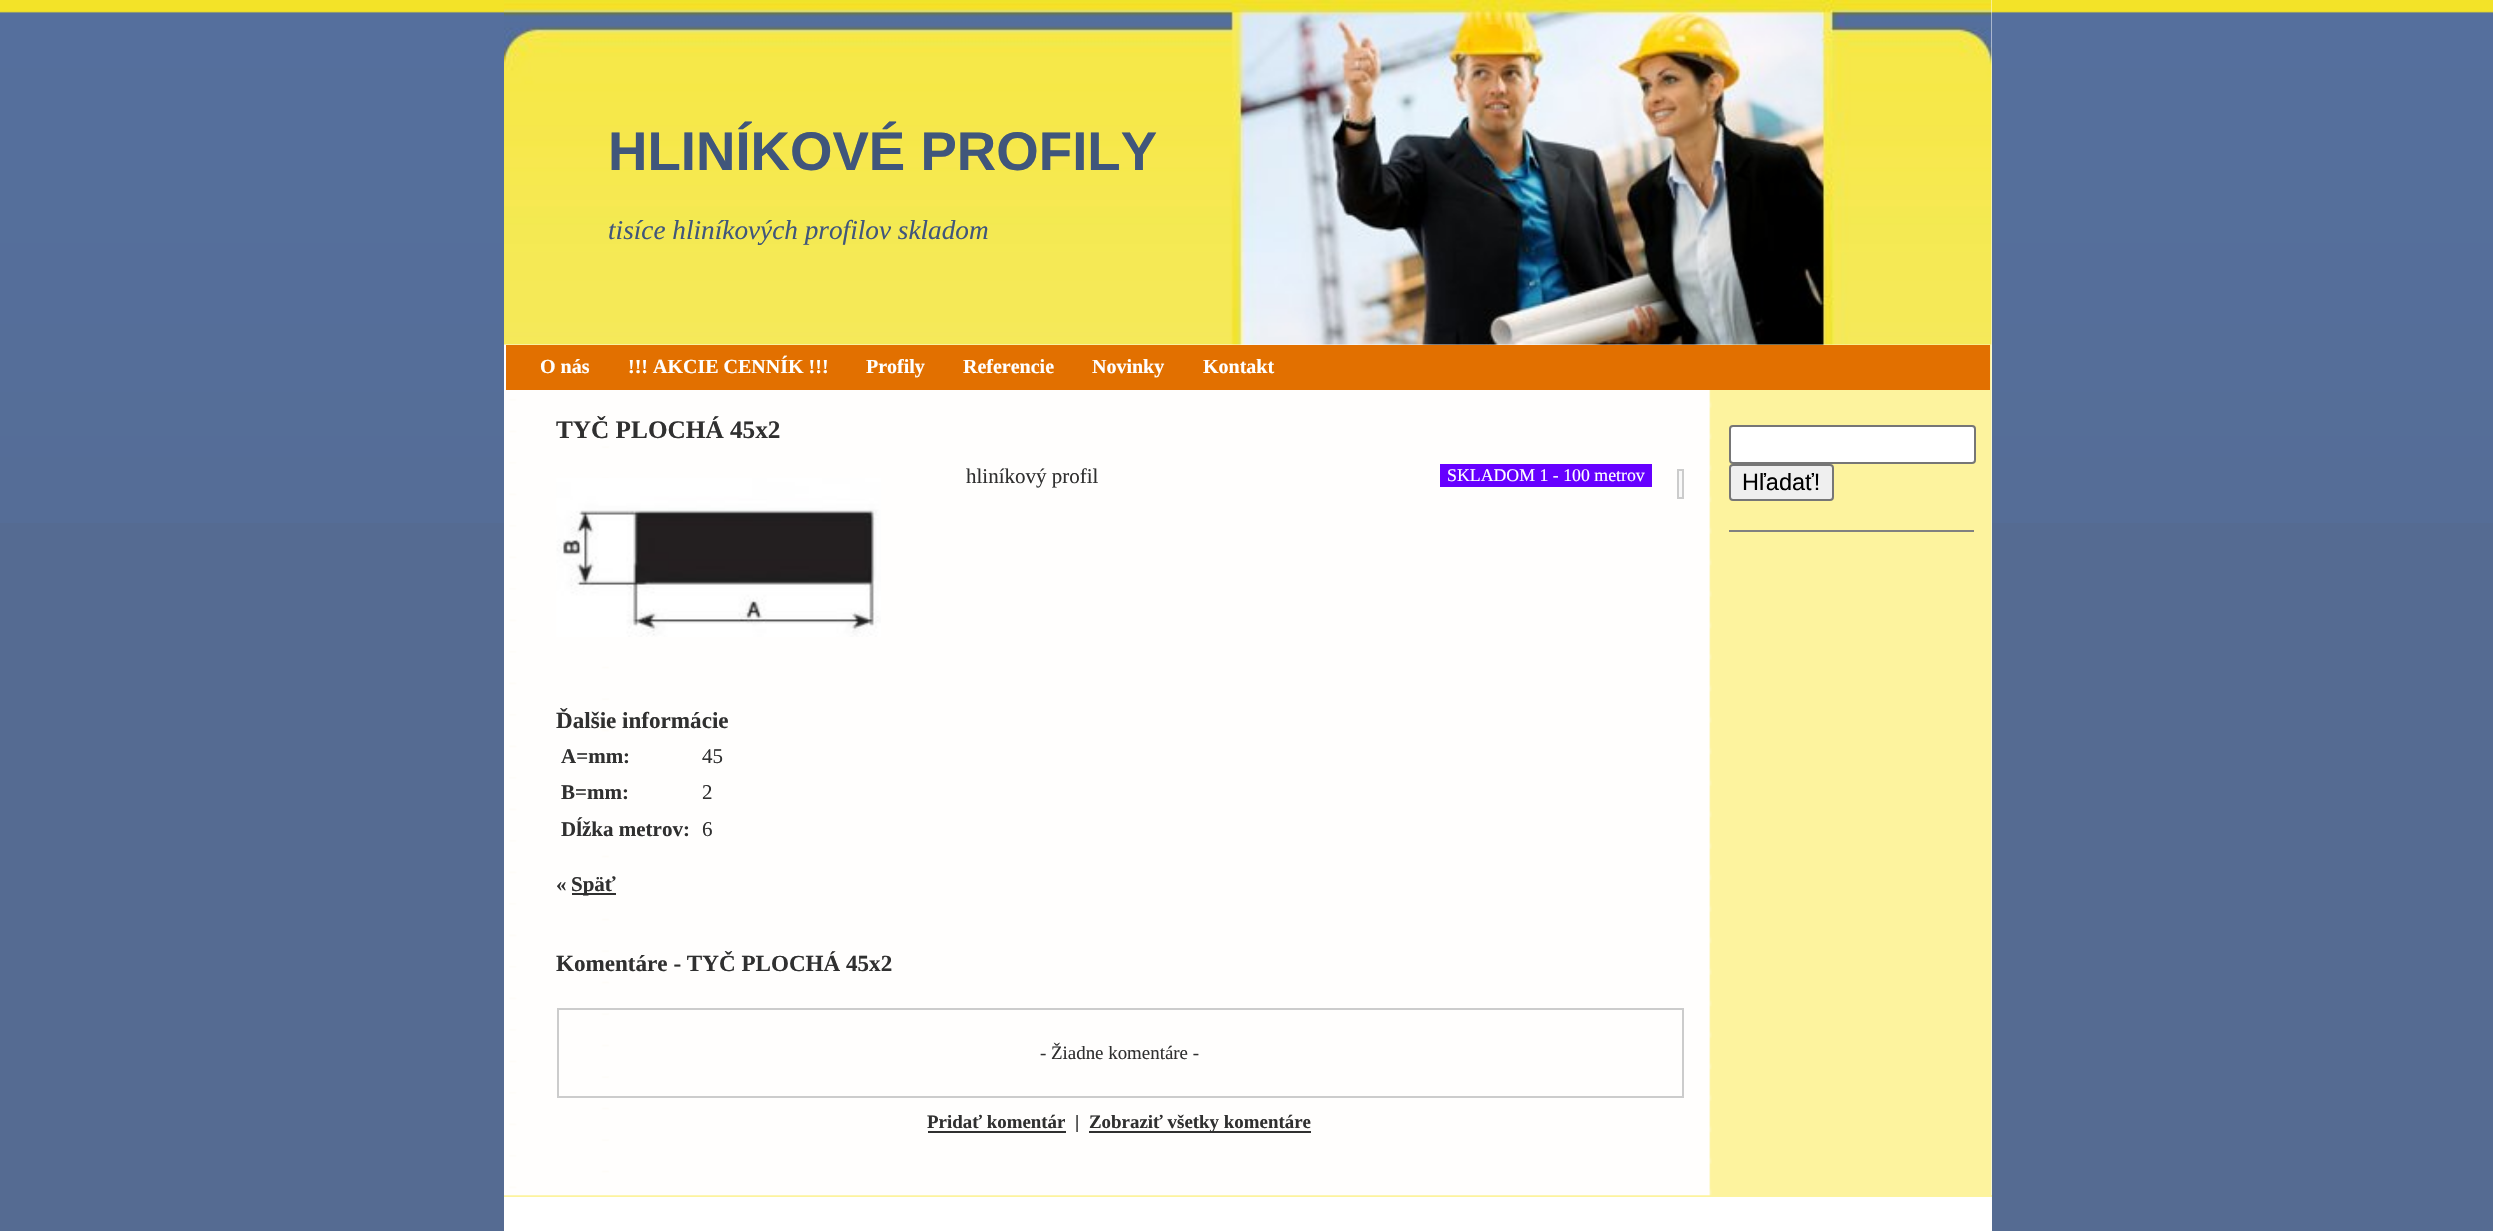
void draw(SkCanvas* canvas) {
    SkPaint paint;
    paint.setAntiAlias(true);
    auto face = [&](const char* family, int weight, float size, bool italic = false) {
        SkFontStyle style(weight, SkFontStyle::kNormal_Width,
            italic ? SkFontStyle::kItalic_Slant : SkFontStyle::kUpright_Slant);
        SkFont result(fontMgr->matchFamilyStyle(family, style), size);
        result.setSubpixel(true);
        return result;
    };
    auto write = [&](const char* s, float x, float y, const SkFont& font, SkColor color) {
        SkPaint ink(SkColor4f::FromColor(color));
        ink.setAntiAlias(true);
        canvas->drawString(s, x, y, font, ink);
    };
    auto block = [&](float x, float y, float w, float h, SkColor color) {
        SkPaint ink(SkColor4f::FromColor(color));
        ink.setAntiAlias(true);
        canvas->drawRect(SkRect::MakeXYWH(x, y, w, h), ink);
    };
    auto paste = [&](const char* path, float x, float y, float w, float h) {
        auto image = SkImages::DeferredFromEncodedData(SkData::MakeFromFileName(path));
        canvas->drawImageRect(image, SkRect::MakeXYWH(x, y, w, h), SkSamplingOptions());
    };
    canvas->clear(SkColorSetRGB(85, 107, 146));
    paste("pic1.png", 0, 0, 2493, 523);
    block(504, 0, 1488, 345, SK_ColorWHITE);
    paste("pic2.png", 504, 0, 1488, 345);
    auto kFont1 = face("Liberation Sans", 700, 54.6f);
    write("HLINÍKOVÉ PROFILY", 608, 170, kFont1, SkColorSetRGB(64, 86, 123));
    auto kFont2 = face("Liberation Serif", 400, 27.25f, true);
    write("tisíce hliníkových profilov skladom", 608, 239, kFont2, SkColorSetRGB(64, 86, 123));
    block(1991, 345, 1, 850, SK_ColorWHITE);
    block(504, 1195, 1488, 2, SkColorSetRGB(253, 243, 158));
    paste("pic3.png", 504, 344, 1488, 852);
    block(506, 345, 1484, 45, SkColorSetRGB(226, 112, 0));
    auto kFont3 = face("Liberation Serif", 700, 20);
    write("O nás", 540, 373, kFont3, SK_ColorWHITE);
    write("!!! AKCIE CENNÍK !!!", 628, 373, kFont3, SK_ColorWHITE);
    write("Profily", 866, 373, kFont3, SK_ColorWHITE);
    write("Referencie", 963, 373, kFont3, SK_ColorWHITE);
    write("Novinky", 1092, 373, kFont3, SK_ColorWHITE);
    write("Kontakt", 1203, 373, kFont3, SK_ColorWHITE);
    auto kFont4 = face("Liberation Serif", 700, 25.25f);
    write("TYČ PLOCHÁ 45x2", 556, 438, kFont4, SkColorSetRGB(48, 48, 48));
    paste("pic4.png", 556, 478, 325, 159);
    auto kFont5 = face("Liberation Serif", 400, 21);
    write("hliníkový profil", 966, 483, kFont5, SkColorSetRGB(48, 48, 48));
    block(1440, 464, 212, 23, SkColorSetRGB(102, 0, 255));
    auto kFont6 = face("Liberation Serif", 400, 17.8f);
    write("SKLADOM 1 - 100 metrov", 1447, 481, kFont6, SK_ColorWHITE);
    block(1679, 469, 3, 28, SkColorSetRGB(249, 249, 249));
    block(1677, 469, 7, 2, SkColorSetRGB(204, 204, 204));
    block(1682, 469, 2, 30, SkColorSetRGB(204, 204, 204));
    block(1677, 497, 7, 2, SkColorSetRGB(204, 204, 204));
    block(1677, 469, 2, 30, SkColorSetRGB(204, 204, 204));
    auto kFont7 = face("Liberation Serif", 700, 23.1f);
    write("Ďalšie informácie", 556, 728, kFont7, SkColorSetRGB(48, 48, 48));
    auto kFont8 = face("Liberation Serif", 700, 21);
    write("A=mm:", 561, 763, kFont8, SkColorSetRGB(48, 48, 48));
    write("45", 702, 763, kFont5, SkColorSetRGB(48, 48, 48));
    write("B=mm:", 561, 799, kFont8, SkColorSetRGB(48, 48, 48));
    write("2", 702, 799, kFont5, SkColorSetRGB(48, 48, 48));
    write("Dĺžka metrov:", 561, 836, kFont8, SkColorSetRGB(48, 48, 48));
    write("6", 702, 836, kFont5, SkColorSetRGB(48, 48, 48));
    write("«", 556, 891, kFont8, SkColorSetRGB(48, 48, 48));
    block(572, 893, 44, 2, SkColorSetRGB(48, 48, 48));
    write("Späť", 571, 891, kFont8, SkColorSetRGB(48, 48, 48));
    write("Komentáre - TYČ PLOCHÁ 45x2", 556, 971, kFont7, SkColorSetRGB(48, 48, 48));
    block(557, 1008, 1127, 2, SkColorSetRGB(204, 204, 204));
    block(1682, 1008, 2, 89, SkColorSetRGB(204, 204, 204));
    block(557, 1096, 1127, 2, SkColorSetRGB(204, 204, 204));
    block(557, 1008, 2, 89, SkColorSetRGB(204, 204, 204));
    auto kFont9 = face("Liberation Serif", 400, 18.9f);
    write("- Žiadne komentáre -", 1040, 1059, kFont9, SkColorSetRGB(48, 48, 48));
    auto kFont10 = face("Liberation Serif", 700, 18.9f);
    write("Pridať komentár", 927, 1128, kFont10, SkColorSetRGB(48, 48, 48));
    block(928, 1131, 138, 2, SkColorSetRGB(48, 48, 48));
    write("|", 1075, 1128, kFont10, SkColorSetRGB(48, 48, 48));
    block(1089, 1131, 222, 2, SkColorSetRGB(48, 48, 48));
    write("Zobraziť všetky komentáre", 1089, 1128, kFont10, SkColorSetRGB(48, 48, 48));
    block(1729, 530, 245, 2, SkColorSetRGB(128, 128, 128));
    paint.setColor(SK_ColorWHITE);
    canvas->drawRoundRect(SkRect::MakeXYWH(1730, 426, 245, 37), 3, 3, paint);
    paint.setStyle(SkPaint::kStroke_Style);
    paint.setStrokeWidth(2);
    paint.setColor(SkColorSetRGB(118, 118, 118));
    canvas->drawRoundRect(SkRect::MakeXYWH(1730, 426, 245, 37), 3, 3, paint);
    paint.setStyle(SkPaint::kFill_Style);
    paint.setColor(SkColorSetRGB(239, 239, 239));
    canvas->drawRoundRect(SkRect::MakeXYWH(1730, 465, 103, 35), 3, 3, paint);
    paint.setStyle(SkPaint::kStroke_Style);
    paint.setColor(SkColorSetRGB(118, 118, 118));
    canvas->drawRoundRect(SkRect::MakeXYWH(1730, 465, 103, 35), 3, 3, paint);
    auto kFont11 = face("Liberation Sans", 400, 23.5f);
    write("Hľadať!", 1742, 490, kFont11, SK_ColorBLACK);
    block(504, 1197, 1488, 34, SK_ColorWHITE);
}
